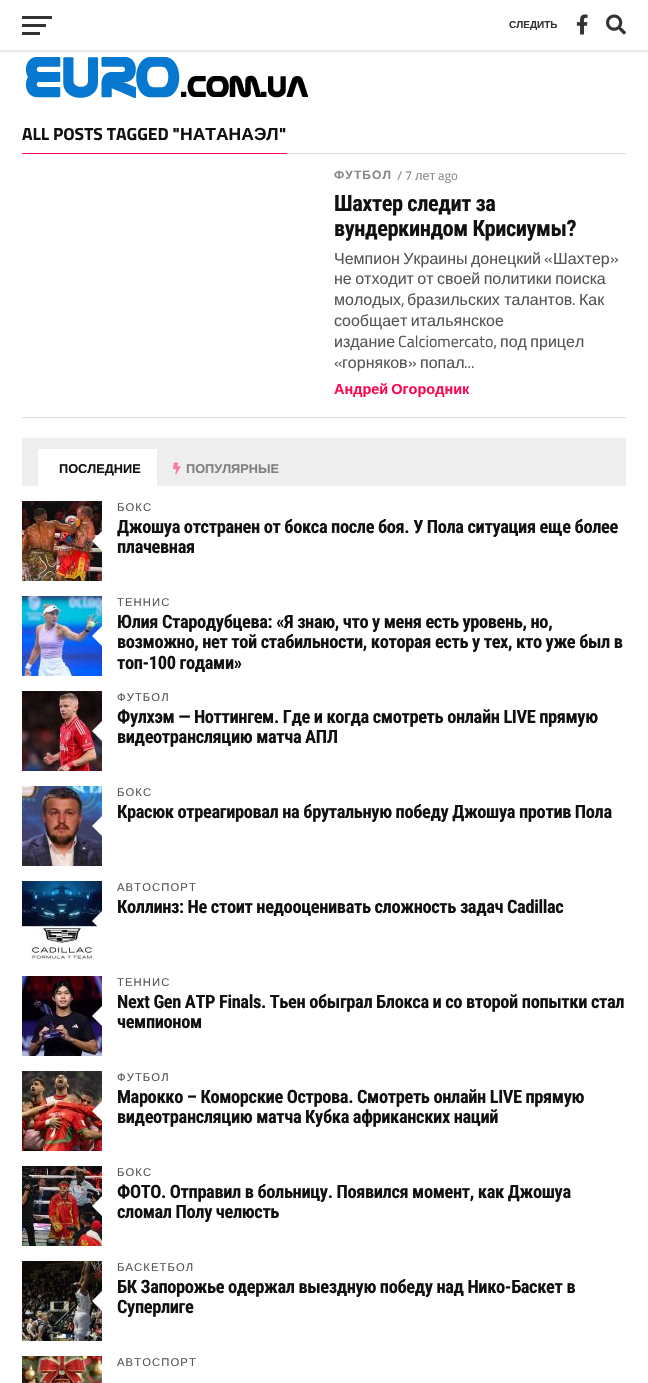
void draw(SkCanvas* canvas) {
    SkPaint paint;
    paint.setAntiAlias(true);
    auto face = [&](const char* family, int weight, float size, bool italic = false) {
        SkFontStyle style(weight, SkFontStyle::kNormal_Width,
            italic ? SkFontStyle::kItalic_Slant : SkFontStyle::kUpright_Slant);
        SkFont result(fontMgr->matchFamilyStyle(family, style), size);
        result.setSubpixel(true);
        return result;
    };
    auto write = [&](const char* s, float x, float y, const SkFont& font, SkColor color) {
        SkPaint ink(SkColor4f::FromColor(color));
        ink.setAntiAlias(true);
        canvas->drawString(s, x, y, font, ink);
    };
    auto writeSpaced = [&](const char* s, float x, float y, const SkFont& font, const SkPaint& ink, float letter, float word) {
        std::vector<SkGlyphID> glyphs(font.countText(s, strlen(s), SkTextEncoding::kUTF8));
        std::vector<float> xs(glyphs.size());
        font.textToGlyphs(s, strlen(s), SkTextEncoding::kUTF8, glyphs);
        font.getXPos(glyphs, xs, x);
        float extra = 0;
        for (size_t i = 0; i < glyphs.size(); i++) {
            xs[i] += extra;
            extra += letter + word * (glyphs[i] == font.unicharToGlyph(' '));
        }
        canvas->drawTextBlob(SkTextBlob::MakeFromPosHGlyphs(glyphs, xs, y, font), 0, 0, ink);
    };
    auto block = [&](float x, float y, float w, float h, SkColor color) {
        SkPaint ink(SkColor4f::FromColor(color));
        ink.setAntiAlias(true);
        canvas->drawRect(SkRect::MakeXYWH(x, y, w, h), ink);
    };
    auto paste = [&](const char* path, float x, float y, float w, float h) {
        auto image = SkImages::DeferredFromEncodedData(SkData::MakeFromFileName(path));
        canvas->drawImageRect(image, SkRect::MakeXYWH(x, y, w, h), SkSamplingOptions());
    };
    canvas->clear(SK_ColorWHITE);
    canvas->save();
    canvas->clipRect(SkRect::MakeXYWH(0, 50, 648, 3));
    paint.setColor(SkColorSetARGB(26, 0, 0, 0));
    paint.setMaskFilter(SkMaskFilter::MakeBlur(kNormal_SkBlurStyle, 1));
    canvas->drawRect(SkRect::MakeXYWH(0, 2, 648, 50), paint);
    paint.setMaskFilter(nullptr);
    canvas->restore();
    block(22, 16, 30, 3, SkColorSetRGB(51, 51, 51));
    block(22, 24, 24, 3, SkColorSetRGB(51, 51, 51));
    block(22, 32, 18, 3, SkColorSetRGB(51, 51, 51));
    paste("pic1.png", 26, 57, 282, 41);
    auto kFont1 = face("Liberation Sans", 700, 10);
    write("СЛЕДИТЬ", 509, 28, kFont1, SkColorSetRGB(51, 51, 51));
    paste("pic2.png", 576, 14, 12, 21);
    paste("pic3.png", 606, 14, 20, 21);
    block(287, 153, 339, 1, SkColorSetRGB(221, 221, 221));
    block(22, 153, 265, 1, SkColorSetRGB(254, 7, 78));
    auto kFont2 = face("Titillium Web", 700, 17.5f);
    write("ALL POSTS TAGGED \"", 22, 140, kFont2, SkColorSetRGB(17, 17, 17));
    auto kFont3 = face("Liberation Sans", 700, 17.5f);
    write("НАТАНАЭЛ", 180, 140, kFont3, SkColorSetRGB(17, 17, 17));
    write("\"", 279, 140, kFont2, SkColorSetRGB(17, 17, 17));
    auto kFont4 = face("Liberation Sans", 700, 12);
    paint.setColor(SkColorSetRGB(136, 136, 136));
    writeSpaced("ФУТБОЛ", 334, 179, kFont4, paint, 1.1f, 0);
    auto kFont5 = face("Titillium Web", 400, 12.75f);
    write("/ 7", 397, 180, kFont5, SkColorSetRGB(136, 136, 136));
    auto kFont6 = face("Liberation Sans", 400, 12.75f);
    write("лет", 415, 180, kFont6, SkColorSetRGB(136, 136, 136));
    write("ago", 438, 180, kFont5, SkColorSetRGB(136, 136, 136));
    auto kFont7 = face("Roboto Condensed", 700, 22.4f);
    paint.setColor(SkColorSetRGB(17, 17, 17));
    writeSpaced("Шахтер следит за", 334, 211, kFont7, paint, -0.45f, 0);
    writeSpaced("вундеркиндом Крисиумы?", 334, 236, kFont7, paint, -0.45f, 0);
    auto kFont8 = face("Liberation Sans", 400, 16);
    paint.setColor(SkColorSetRGB(85, 85, 85));
    writeSpaced("Чемпион Украины донецкий", 334, 264, kFont8, paint, 0, -1);
    auto kFont9 = face("Titillium Web", 400, 16);
    write("«", 544, 264, kFont9, SkColorSetRGB(85, 85, 85));
    write("Шахтер", 553, 264, kFont8, SkColorSetRGB(85, 85, 85));
    write("»", 610, 264, kFont9, SkColorSetRGB(85, 85, 85));
    writeSpaced("не отходит от своей политики поиска", 334, 284, kFont8, paint, 0, -1);
    write("молодых", 334, 305, kFont8, SkColorSetRGB(85, 85, 85));
    write(",", 401, 305, kFont9, SkColorSetRGB(85, 85, 85));
    write("бразильских талантов", 407, 305, kFont8, SkColorSetRGB(85, 85, 85));
    write(".", 572, 305, kFont9, SkColorSetRGB(85, 85, 85));
    write("Как", 579, 305, kFont8, SkColorSetRGB(85, 85, 85));
    writeSpaced("сообщает итальянское", 334, 326, kFont8, paint, 0, -1);
    write("издание", 334, 347, kFont8, SkColorSetRGB(85, 85, 85));
    write("Calciomercato,", 398, 347, kFont9, SkColorSetRGB(85, 85, 85));
    writeSpaced("под прицел", 500, 347, kFont8, paint, 0, -1);
    write("«", 334, 368, kFont9, SkColorSetRGB(85, 85, 85));
    write("горняков", 342, 368, kFont8, SkColorSetRGB(85, 85, 85));
    write("»", 408, 368, kFont9, SkColorSetRGB(85, 85, 85));
    write("попал", 420, 368, kFont8, SkColorSetRGB(85, 85, 85));
    write("...", 464, 368, kFont9, SkColorSetRGB(85, 85, 85));
    auto kFont10 = face("Liberation Sans", 700, 14.5f);
    paint.setColor(SkColorSetRGB(254, 7, 78));
    writeSpaced("Андрей Огородник", 334, 394, kFont10, paint, 0, -1);
    block(22, 417, 604, 1, SkColorSetRGB(221, 221, 221));
    block(22, 438, 604, 48, SkColorSetRGB(238, 238, 238));
    block(38, 449, 119, 37, SK_ColorWHITE);
    auto kFont11 = face("Liberation Sans", 700, 12.75f);
    write("ПОСЛЕДНИЕ", 59, 473, kFont11, SkColorSetRGB(17, 17, 17));
    paste("pic4.png", 173, 462, 8, 13);
    write("ПОПУЛЯРНЫЕ", 186, 473, kFont11, SkColorSetRGB(128, 128, 128));
    paste("pic5.png", 22, 501, 80, 80);
    paint.setColor(SK_ColorWHITE);
    canvas->drawPath(SkPathBuilder().moveTo(102, 531).lineTo(102, 551).lineTo(92, 541).close().detach(), paint);
    auto kFont12 = face("Liberation Sans", 400, 11.25f);
    paint.setColor(SkColorSetRGB(85, 85, 85));
    writeSpaced("БОКС", 117, 511, kFont12, paint, 1.1f, 0);
    auto kFont13 = face("Roboto Condensed", 700, 18.4f);
    paint.setColor(SkColorSetRGB(17, 17, 17));
    writeSpaced("Джошуа отстранен от бокса после боя. У Пола ситуация еще более", 117, 533, kFont13, paint, -0.37f, 0);
    writeSpaced("плачевная", 117, 553, kFont13, paint, -0.37f, 0);
    paste("pic6.png", 22, 596, 80, 80);
    paint.setColor(SK_ColorWHITE);
    canvas->drawPath(SkPathBuilder().moveTo(102, 626).lineTo(102, 646).lineTo(92, 636).close().detach(), paint);
    paint.setColor(SkColorSetRGB(85, 85, 85));
    writeSpaced("ТЕННИС", 117, 606, kFont12, paint, 1.1f, 0);
    paint.setColor(SkColorSetRGB(17, 17, 17));
    writeSpaced("Юлия Стародубцева: «Я знаю, что у меня есть уровень, но,", 117, 628, kFont13, paint, -0.37f, 0);
    writeSpaced("возможно, нет той стабильности, которая есть у тех, кто уже был в", 117, 648, kFont13, paint, -0.37f, 0);
    writeSpaced("топ-100 годами»", 117, 669, kFont13, paint, -0.37f, 0);
    paste("pic7.png", 22, 691, 80, 80);
    paint.setColor(SK_ColorWHITE);
    canvas->drawPath(SkPathBuilder().moveTo(102, 721).lineTo(102, 741).lineTo(92, 731).close().detach(), paint);
    paint.setColor(SkColorSetRGB(85, 85, 85));
    writeSpaced("ФУТБОЛ", 117, 701, kFont12, paint, 1.1f, 0);
    paint.setColor(SkColorSetRGB(17, 17, 17));
    writeSpaced("Фулхэм — Ноттингем. Где и когда смотреть онлайн LIVE прямую", 117, 723, kFont13, paint, -0.37f, 0);
    writeSpaced("видеотрансляцию матча АПЛ", 117, 743, kFont13, paint, -0.37f, 0);
    paste("pic8.png", 22, 786, 80, 80);
    paint.setColor(SK_ColorWHITE);
    canvas->drawPath(SkPathBuilder().moveTo(102, 816).lineTo(102, 836).lineTo(92, 826).close().detach(), paint);
    paint.setColor(SkColorSetRGB(85, 85, 85));
    writeSpaced("БОКС", 117, 796, kFont12, paint, 1.1f, 0);
    paint.setColor(SkColorSetRGB(17, 17, 17));
    writeSpaced("Красюк отреагировал на брутальную победу Джошуа против Пола", 117, 818, kFont13, paint, -0.37f, 0);
    paste("pic9.png", 22, 881, 80, 80);
    paint.setColor(SK_ColorWHITE);
    canvas->drawPath(SkPathBuilder().moveTo(102, 911).lineTo(102, 931).lineTo(92, 921).close().detach(), paint);
    paint.setColor(SkColorSetRGB(85, 85, 85));
    writeSpaced("АВТОСПОРТ", 117, 891, kFont12, paint, 1.1f, 0);
    paint.setColor(SkColorSetRGB(17, 17, 17));
    writeSpaced("Коллинз: Не стоит недооценивать сложность задач Cadillac", 117, 913, kFont13, paint, -0.37f, 0);
    paste("pic10.png", 22, 976, 80, 80);
    paint.setColor(SK_ColorWHITE);
    canvas->drawPath(SkPathBuilder().moveTo(102, 1006).lineTo(102, 1026).lineTo(92, 1016).close().detach(), paint);
    paint.setColor(SkColorSetRGB(85, 85, 85));
    writeSpaced("ТЕННИС", 117, 986, kFont12, paint, 1.1f, 0);
    paint.setColor(SkColorSetRGB(17, 17, 17));
    writeSpaced("Next Gen ATP Finals. Тьен обыграл Блокса и со второй попытки стал", 117, 1008, kFont13, paint, -0.37f, 0);
    writeSpaced("чемпионом", 117, 1028, kFont13, paint, -0.37f, 0);
    paste("pic11.png", 22, 1071, 80, 80);
    paint.setColor(SK_ColorWHITE);
    canvas->drawPath(SkPathBuilder().moveTo(102, 1101).lineTo(102, 1121).lineTo(92, 1111).close().detach(), paint);
    paint.setColor(SkColorSetRGB(85, 85, 85));
    writeSpaced("ФУТБОЛ", 117, 1081, kFont12, paint, 1.1f, 0);
    paint.setColor(SkColorSetRGB(17, 17, 17));
    writeSpaced("Марокко – Коморские Острова. Смотреть онлайн LIVE прямую", 117, 1103, kFont13, paint, -0.37f, 0);
    writeSpaced("видеотрансляцию матча Кубка африканских наций", 117, 1123, kFont13, paint, -0.37f, 0);
    paste("pic12.png", 22, 1166, 80, 80);
    paint.setColor(SK_ColorWHITE);
    canvas->drawPath(SkPathBuilder().moveTo(102, 1196).lineTo(102, 1216).lineTo(92, 1206).close().detach(), paint);
    paint.setColor(SkColorSetRGB(85, 85, 85));
    writeSpaced("БОКС", 117, 1176, kFont12, paint, 1.1f, 0);
    paint.setColor(SkColorSetRGB(17, 17, 17));
    writeSpaced("ФОТО. Отправил в больницу. Появился момент, как Джошуа", 117, 1198, kFont13, paint, -0.37f, 0);
    writeSpaced("сломал Полу челюсть", 117, 1218, kFont13, paint, -0.37f, 0);
    paste("pic13.png", 22, 1261, 80, 80);
    paint.setColor(SK_ColorWHITE);
    canvas->drawPath(SkPathBuilder().moveTo(102, 1291).lineTo(102, 1311).lineTo(92, 1301).close().detach(), paint);
    paint.setColor(SkColorSetRGB(85, 85, 85));
    writeSpaced("БАСКЕТБОЛ", 117, 1271, kFont12, paint, 1.1f, 0);
    paint.setColor(SkColorSetRGB(17, 17, 17));
    writeSpaced("БК Запорожье одержал выездную победу над Нико-Баскет в", 117, 1293, kFont13, paint, -0.37f, 0);
    writeSpaced("Суперлиге", 117, 1313, kFont13, paint, -0.37f, 0);
    paste("pic14.png", 22, 1356, 80, 27);
    paint.setColor(SkColorSetRGB(85, 85, 85));
    writeSpaced("АВТОСПОРТ", 117, 1366, kFont12, paint, 1.1f, 0);
}
